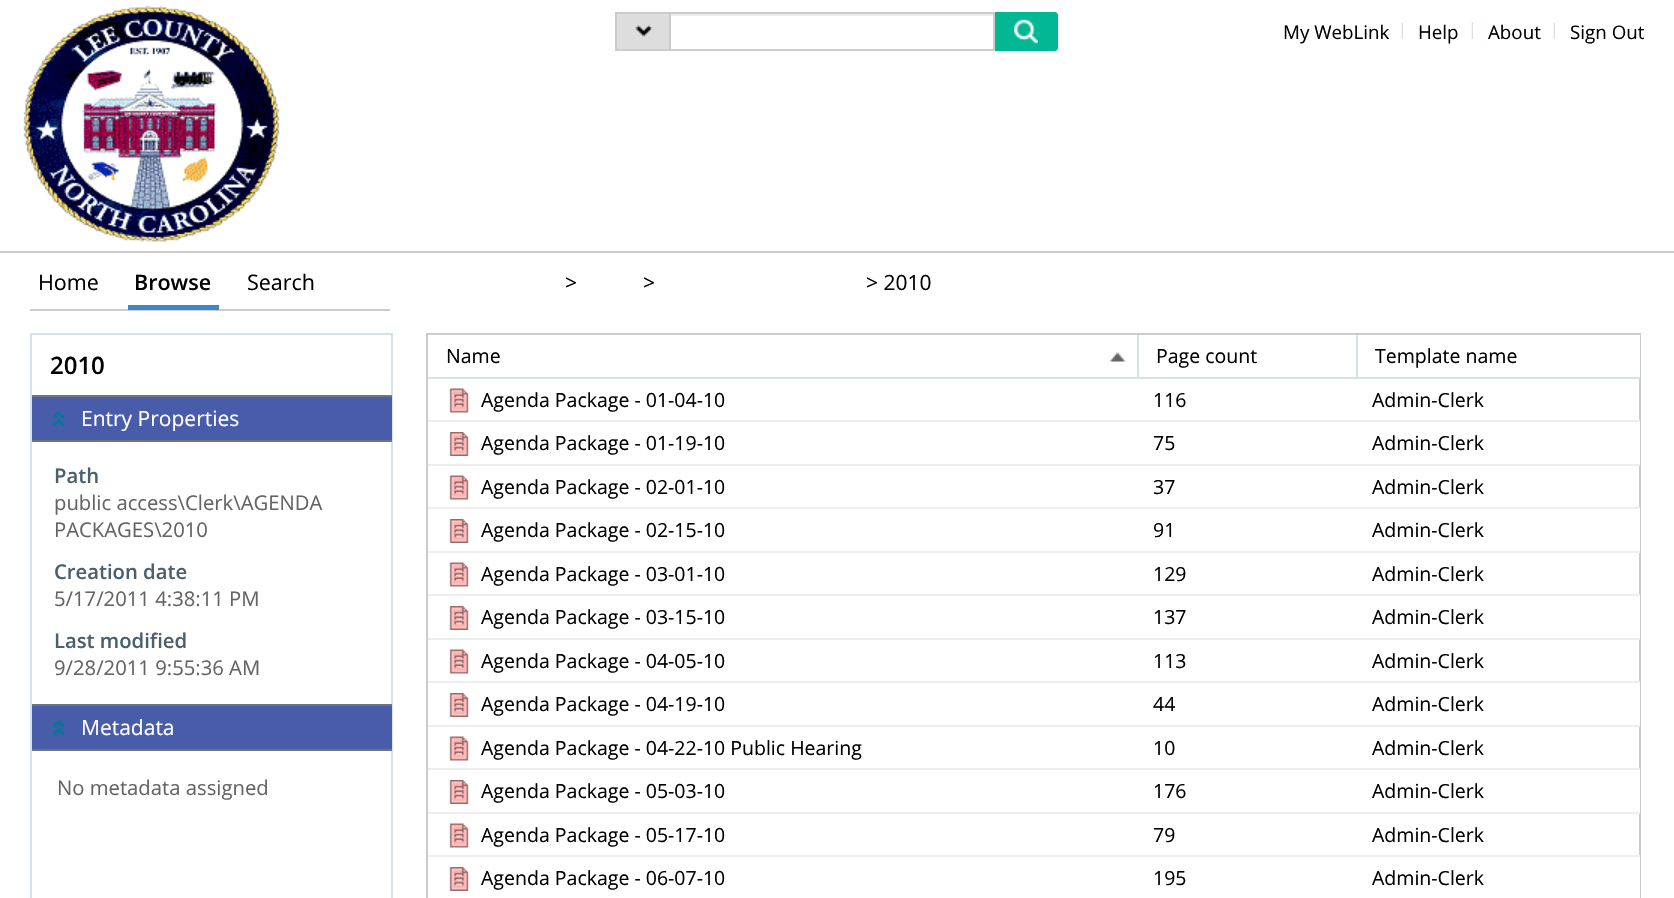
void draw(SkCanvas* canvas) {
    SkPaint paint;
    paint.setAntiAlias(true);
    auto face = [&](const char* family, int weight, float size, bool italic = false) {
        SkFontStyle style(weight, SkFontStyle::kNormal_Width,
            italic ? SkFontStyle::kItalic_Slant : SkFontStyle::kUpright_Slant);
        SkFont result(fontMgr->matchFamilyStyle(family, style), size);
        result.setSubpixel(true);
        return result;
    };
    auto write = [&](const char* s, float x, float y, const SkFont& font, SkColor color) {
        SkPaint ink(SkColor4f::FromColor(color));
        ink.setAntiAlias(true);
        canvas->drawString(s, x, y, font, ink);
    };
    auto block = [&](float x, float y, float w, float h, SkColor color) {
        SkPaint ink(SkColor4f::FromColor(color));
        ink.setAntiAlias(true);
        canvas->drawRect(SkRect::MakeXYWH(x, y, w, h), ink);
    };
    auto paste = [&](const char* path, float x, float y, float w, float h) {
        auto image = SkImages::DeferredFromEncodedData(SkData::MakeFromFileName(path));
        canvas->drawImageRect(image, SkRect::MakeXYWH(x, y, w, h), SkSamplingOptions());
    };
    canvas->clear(SK_ColorWHITE);
    block(0, 251, 1674, 2, SkColorSetRGB(204, 204, 204));
    paste("pic1.png", 23, 5, 257, 237);
    block(617, 14, 52, 35, SkColorSetRGB(221, 221, 221));
    paste("pic2.png", 635, 25, 17, 12);
    paint.setStyle(SkPaint::kStroke_Style);
    paint.setStrokeWidth(2);
    paint.setColor(SkColorSetRGB(204, 204, 204));
    canvas->drawRect(SkRect::MakeXYWH(616, 13, 54, 37), paint);
    block(671, 14, 322, 2, SkColorSetRGB(236, 236, 236));
    canvas->drawRect(SkRect::MakeXYWH(670, 13, 324, 37), paint);
    paint.setStyle(SkPaint::kFill_Style);
    paint.setColor(SkColorSetRGB(2, 183, 147));
    canvas->drawPath(SkPathBuilder().moveTo(995, 12).lineTo(1055, 12).cubicTo(1056.5f, 12, 1058, 13.5f, 1058, 15).lineTo(1058, 48).cubicTo(1058, 49.5f, 1056.5f, 51, 1055, 51).lineTo(995, 51).close().detach(), paint);
    paste("pic3.png", 1014, 19, 24, 25);
    auto kFont1 = face("Open Sans", 400, 18.75f);
    write("My WebLink", 1283, 39, kFont1, SK_ColorBLACK);
    auto kFont2 = face("Open Sans", 400, 16);
    write("|", 1398, 35, kFont2, SkColorSetRGB(213, 226, 230));
    write("Help", 1418, 39, kFont1, SK_ColorBLACK);
    write("|", 1468, 35, kFont2, SkColorSetRGB(213, 226, 230));
    write("About", 1488, 39, kFont1, SK_ColorBLACK);
    write("|", 1550, 35, kFont2, SkColorSetRGB(213, 226, 230));
    write("Sign Out", 1570, 39, kFont1, SK_ColorBLACK);
    block(30, 309, 360, 2, SkColorSetRGB(204, 204, 204));
    auto kFont3 = face("Open Sans", 400, 21.5f);
    write("Home", 38, 290, kFont3, SK_ColorBLACK);
    auto kFont4 = face("Open Sans", 600, 21.5f);
    write("Browse", 134, 290, kFont4, SK_ColorBLACK);
    block(128, 305, 91, 5, SkColorSetRGB(63, 134, 197));
    write("Search", 247, 290, kFont3, SK_ColorBLACK);
    auto kFont5 = face("Open Sans", 400, 21);
    write(">", 565, 290, kFont5, SK_ColorBLACK);
    write(">", 643, 290, kFont5, SK_ColorBLACK);
    write("> 2010", 866, 290, kFont5, SK_ColorBLACK);
    paint.setStyle(SkPaint::kStroke_Style);
    paint.setColor(SkColorSetRGB(213, 226, 230));
    canvas->drawRect(SkRect::MakeXYWH(31, 334, 361, 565), paint);
    auto kFont6 = face("Open Sans", 600, 24);
    write("2010", 50, 374, kFont6, SK_ColorBLACK);
    block(32, 397, 360, 43, SkColorSetRGB(73, 92, 169));
    block(32, 395, 360, 2, SkColorSetRGB(109, 117, 124));
    block(32, 440, 360, 2, SkColorSetRGB(109, 117, 124));
    paste("pic4.png", 52, 410, 13, 17);
    write("Entry Properties", 81, 426, kFont5, SK_ColorWHITE);
    auto kFont7 = face("Open Sans", 600, 20.25f);
    write("Path", 54, 483, kFont7, SkColorSetRGB(74, 96, 111));
    auto kFont8 = face("Open Sans", 400, 20.25f);
    write("public access\\Clerk\\AGENDA", 54, 510, kFont8, SkColorSetRGB(100, 100, 100));
    write("PACKAGES\\2010", 54, 537, kFont8, SkColorSetRGB(100, 100, 100));
    write("Creation date", 54, 579, kFont7, SkColorSetRGB(74, 96, 111));
    write("5/17/2011 4:38:11 PM", 54, 606, kFont8, SkColorSetRGB(100, 100, 100));
    write("Last modified", 54, 648, kFont7, SkColorSetRGB(74, 96, 111));
    write("9/28/2011 9:55:36 AM", 54, 675, kFont8, SkColorSetRGB(100, 100, 100));
    block(32, 706, 360, 43, SkColorSetRGB(73, 92, 169));
    block(32, 704, 360, 2, SkColorSetRGB(109, 117, 124));
    block(32, 749, 360, 2, SkColorSetRGB(109, 117, 124));
    paste("pic4.png", 52, 719, 13, 17);
    write("Metadata", 81, 735, kFont5, SK_ColorWHITE);
    write("No metadata assigned", 57, 795, kFont8, SkColorSetRGB(100, 100, 100));
    paint.setColor(SkColorSetRGB(204, 204, 204));
    canvas->drawRect(SkRect::MakeXYWH(427, 334, 1213, 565), paint);
    block(1137, 335, 2, 43, SkColorSetRGB(213, 226, 230));
    block(428, 377, 711, 2, SkColorSetRGB(213, 226, 230));
    paste("pic5.png", 1109, 352, 17, 10);
    auto kFont9 = face("Open Sans", 400, 19.5f);
    write("Name", 446, 363, kFont9, SK_ColorBLACK);
    block(1356, 335, 2, 43, SkColorSetRGB(213, 226, 230));
    block(1139, 377, 501, 2, SkColorSetRGB(213, 226, 230));
    write("Page count", 1156, 363, kFont9, SK_ColorBLACK);
    block(1639, 335, 1, 42, SK_ColorWHITE);
    write("Template name", 1375, 363, kFont9, SK_ColorBLACK);
    paste("pic6.png", 449, 388, 20, 25);
    write("Agenda Package - 01-04-10", 481, 407, kFont9, SK_ColorBLACK);
    write("116", 1153, 407, kFont9, SK_ColorBLACK);
    write("Admin-Clerk", 1372, 407, kFont9, SK_ColorBLACK);
    block(1639, 422, 1, 42, SK_ColorWHITE);
    block(428, 420, 1212, 2, SkColorSetRGB(238, 238, 238));
    paste("pic7.png", 449, 432, 20, 24);
    write("Agenda Package - 01-19-10", 481, 450, kFont9, SK_ColorBLACK);
    write("75", 1153, 450, kFont9, SK_ColorBLACK);
    write("Admin-Clerk", 1372, 450, kFont9, SK_ColorBLACK);
    block(428, 464, 1212, 2, SkColorSetRGB(238, 238, 238));
    paste("pic6.png", 449, 475, 20, 25);
    write("Agenda Package - 02-01-10", 481, 494, kFont9, SK_ColorBLACK);
    write("37", 1153, 494, kFont9, SK_ColorBLACK);
    write("Admin-Clerk", 1372, 494, kFont9, SK_ColorBLACK);
    block(1639, 509, 1, 42, SK_ColorWHITE);
    block(428, 507, 1212, 2, SkColorSetRGB(238, 238, 238));
    paste("pic7.png", 449, 519, 20, 24);
    write("Agenda Package - 02-15-10", 481, 537, kFont9, SK_ColorBLACK);
    write("91", 1153, 537, kFont9, SK_ColorBLACK);
    write("Admin-Clerk", 1372, 537, kFont9, SK_ColorBLACK);
    block(428, 551, 1212, 2, SkColorSetRGB(238, 238, 238));
    paste("pic6.png", 449, 562, 20, 25);
    write("Agenda Package - 03-01-10", 481, 581, kFont9, SK_ColorBLACK);
    write("129", 1153, 581, kFont9, SK_ColorBLACK);
    write("Admin-Clerk", 1372, 581, kFont9, SK_ColorBLACK);
    block(1639, 596, 1, 42, SK_ColorWHITE);
    block(428, 594, 1212, 2, SkColorSetRGB(238, 238, 238));
    paste("pic7.png", 449, 606, 20, 24);
    write("Agenda Package - 03-15-10", 481, 624, kFont9, SK_ColorBLACK);
    write("137", 1153, 624, kFont9, SK_ColorBLACK);
    write("Admin-Clerk", 1372, 624, kFont9, SK_ColorBLACK);
    block(428, 638, 1212, 2, SkColorSetRGB(238, 238, 238));
    paste("pic6.png", 449, 649, 20, 25);
    write("Agenda Package - 04-05-10", 481, 668, kFont9, SK_ColorBLACK);
    write("113", 1153, 668, kFont9, SK_ColorBLACK);
    write("Admin-Clerk", 1372, 668, kFont9, SK_ColorBLACK);
    block(1639, 683, 1, 42, SK_ColorWHITE);
    block(428, 681, 1212, 2, SkColorSetRGB(238, 238, 238));
    paste("pic7.png", 449, 693, 20, 24);
    write("Agenda Package - 04-19-10", 481, 711, kFont9, SK_ColorBLACK);
    write("44", 1153, 711, kFont9, SK_ColorBLACK);
    write("Admin-Clerk", 1372, 711, kFont9, SK_ColorBLACK);
    block(428, 725, 1212, 2, SkColorSetRGB(238, 238, 238));
    paste("pic6.png", 449, 736, 20, 25);
    write("Agenda Package - 04-22-10 Public Hearing", 481, 755, kFont9, SK_ColorBLACK);
    write("10", 1153, 755, kFont9, SK_ColorBLACK);
    write("Admin-Clerk", 1372, 755, kFont9, SK_ColorBLACK);
    block(1639, 770, 1, 42, SK_ColorWHITE);
    block(428, 768, 1212, 2, SkColorSetRGB(238, 238, 238));
    paste("pic7.png", 449, 780, 20, 24);
    write("Agenda Package - 05-03-10", 481, 798, kFont9, SK_ColorBLACK);
    write("176", 1153, 798, kFont9, SK_ColorBLACK);
    write("Admin-Clerk", 1372, 798, kFont9, SK_ColorBLACK);
    block(428, 812, 1212, 2, SkColorSetRGB(238, 238, 238));
    paste("pic6.png", 449, 823, 20, 25);
    write("Agenda Package - 05-17-10", 481, 842, kFont9, SK_ColorBLACK);
    write("79", 1153, 842, kFont9, SK_ColorBLACK);
    write("Admin-Clerk", 1372, 842, kFont9, SK_ColorBLACK);
    block(1639, 857, 1, 41, SK_ColorWHITE);
    block(428, 855, 1212, 2, SkColorSetRGB(238, 238, 238));
    paste("pic7.png", 449, 867, 20, 24);
    write("Agenda Package - 06-07-10", 481, 885, kFont9, SK_ColorBLACK);
    write("195", 1153, 885, kFont9, SK_ColorBLACK);
    write("Admin-Clerk", 1372, 885, kFont9, SK_ColorBLACK);
}
